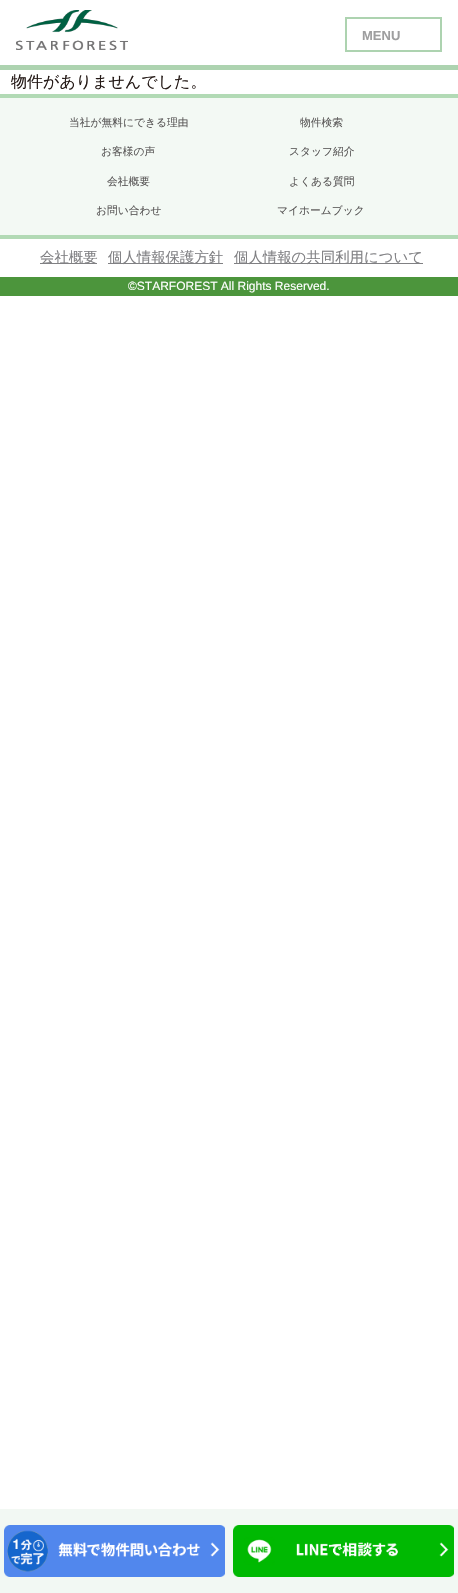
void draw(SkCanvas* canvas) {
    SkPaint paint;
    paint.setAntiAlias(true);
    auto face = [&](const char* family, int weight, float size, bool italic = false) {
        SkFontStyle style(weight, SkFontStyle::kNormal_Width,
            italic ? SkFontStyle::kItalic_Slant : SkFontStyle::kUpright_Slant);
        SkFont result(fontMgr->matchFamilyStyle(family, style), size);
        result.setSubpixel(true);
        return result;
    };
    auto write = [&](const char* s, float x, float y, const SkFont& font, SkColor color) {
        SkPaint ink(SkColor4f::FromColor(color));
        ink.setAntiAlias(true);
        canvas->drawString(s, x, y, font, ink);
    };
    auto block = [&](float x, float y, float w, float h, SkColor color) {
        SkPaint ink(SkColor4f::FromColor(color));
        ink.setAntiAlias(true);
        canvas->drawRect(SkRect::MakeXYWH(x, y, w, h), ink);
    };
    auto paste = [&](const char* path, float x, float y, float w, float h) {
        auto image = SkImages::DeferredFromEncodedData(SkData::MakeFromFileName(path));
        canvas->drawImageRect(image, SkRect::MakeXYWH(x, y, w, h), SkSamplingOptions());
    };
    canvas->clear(SK_ColorWHITE);
    block(0, 65, 458, 5, SkColorSetRGB(173, 211, 176));
    paste("pic1.png", 16, 10, 112, 40);
    paint.setStyle(SkPaint::kStroke_Style);
    paint.setStrokeWidth(2);
    paint.setColor(SkColorSetRGB(173, 211, 176));
    canvas->drawRect(SkRect::MakeXYWH(346, 18, 95, 33), paint);
    auto kFont1 = face("Liberation Sans", 700, 13);
    write("MENU", 362, 40, kFont1, SkColorSetRGB(158, 158, 159));
    auto kFont2 = face("WenQuanYi Zen Hei", 500, 16);
    write("物件がありませんでした。", 11, 87, kFont2, SkColorSetRGB(35, 24, 21));
    block(0, 98, 458, 137, SkColorSetRGB(243, 249, 244));
    block(0, 94, 458, 4, SkColorSetRGB(178, 218, 181));
    block(0, 235, 458, 4, SkColorSetRGB(178, 218, 181));
    auto kFont3 = face("WenQuanYi Zen Hei", 500, 10.75f);
    write("当社が無料にできる理由", 69, 126, kFont3, SkColorSetRGB(89, 87, 87));
    write("物件検索", 300, 126, kFont3, SkColorSetRGB(89, 87, 87));
    write("お客様の声", 101, 155, kFont3, SkColorSetRGB(89, 87, 87));
    write("スタッフ紹介", 289, 155, kFont3, SkColorSetRGB(89, 87, 87));
    write("会社概要", 107, 185, kFont3, SkColorSetRGB(89, 87, 87));
    write("よくある質問", 289, 185, kFont3, SkColorSetRGB(89, 87, 87));
    write("お問い合わせ", 96, 214, kFont3, SkColorSetRGB(89, 87, 87));
    write("マイホームブック", 277, 214, kFont3, SkColorSetRGB(89, 87, 87));
    block(40, 263, 57, 1, SkColorSetRGB(128, 128, 131));
    auto kFont4 = face("WenQuanYi Zen Hei", 500, 14.4f);
    write("会社概要", 40, 262, kFont4, SkColorSetRGB(128, 128, 131));
    block(108, 263, 115, 1, SkColorSetRGB(128, 128, 131));
    write("個人情報保護方針", 108, 262, kFont4, SkColorSetRGB(128, 128, 131));
    block(234, 263, 189, 1, SkColorSetRGB(128, 128, 131));
    write("個人情報の共同利用について", 234, 262, kFont4, SkColorSetRGB(128, 128, 131));
    block(0, 277, 458, 19, SkColorSetRGB(76, 149, 60));
    auto kFont5 = face("Liberation Sans", 400, 12);
    write("©STARFOREST All Rights Reserved.", 128, 290, kFont5, SK_ColorWHITE);
    block(0, 1509, 458, 84, SkColorSetRGB(242, 248, 243));
    paste("pic2.png", 4, 1525, 221, 52);
    paste("pic3.png", 233, 1525, 221, 52);
}
